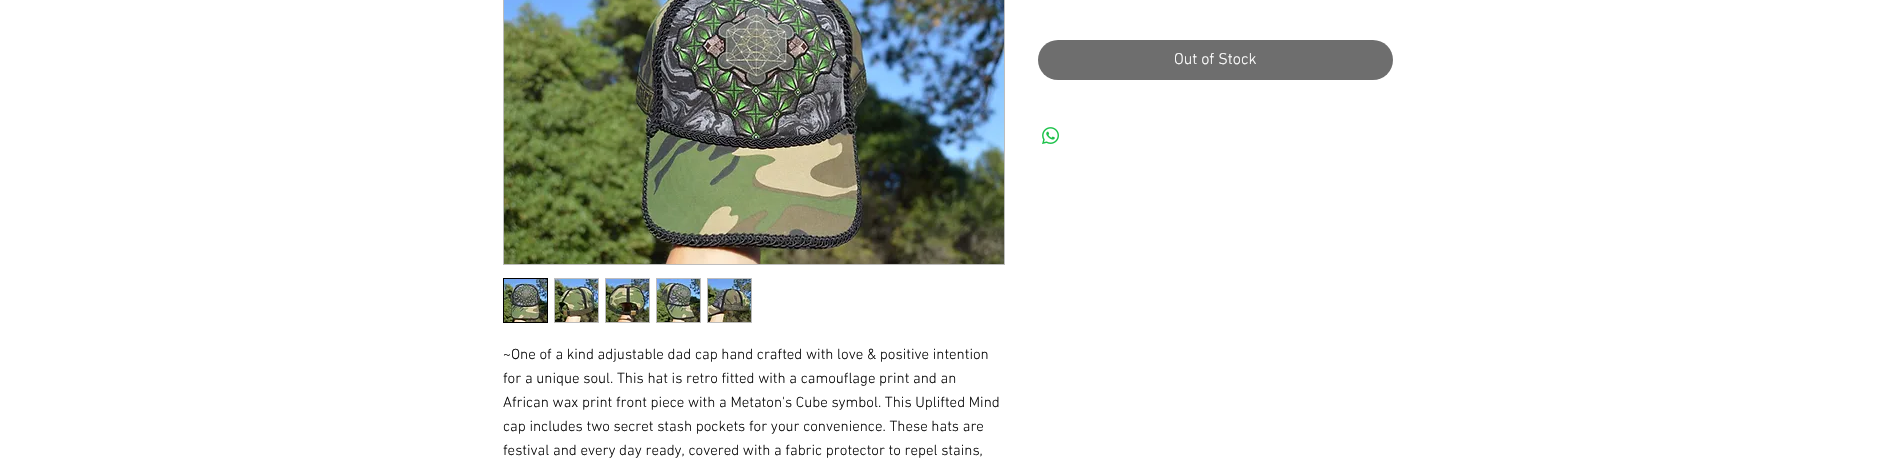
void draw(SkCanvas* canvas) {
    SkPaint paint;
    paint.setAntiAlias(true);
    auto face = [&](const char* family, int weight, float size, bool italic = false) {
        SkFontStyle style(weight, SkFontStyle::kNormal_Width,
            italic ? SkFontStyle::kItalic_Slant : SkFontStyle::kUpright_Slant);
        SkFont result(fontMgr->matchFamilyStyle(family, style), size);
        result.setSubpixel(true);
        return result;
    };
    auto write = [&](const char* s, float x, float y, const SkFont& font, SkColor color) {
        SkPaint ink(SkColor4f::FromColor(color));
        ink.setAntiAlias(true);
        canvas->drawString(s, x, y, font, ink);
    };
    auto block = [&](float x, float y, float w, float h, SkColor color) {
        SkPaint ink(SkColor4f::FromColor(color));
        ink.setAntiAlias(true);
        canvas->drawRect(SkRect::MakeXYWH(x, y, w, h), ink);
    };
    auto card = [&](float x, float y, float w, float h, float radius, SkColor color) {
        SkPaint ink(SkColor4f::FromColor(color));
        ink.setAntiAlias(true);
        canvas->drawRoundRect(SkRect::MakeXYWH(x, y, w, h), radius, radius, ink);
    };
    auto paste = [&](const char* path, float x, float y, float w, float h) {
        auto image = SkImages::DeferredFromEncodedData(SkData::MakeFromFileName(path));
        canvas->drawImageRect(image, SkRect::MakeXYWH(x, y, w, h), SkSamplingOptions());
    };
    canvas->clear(SK_ColorWHITE);
    card(1038, 40, 355, 40, 20, SkColorSetRGB(110, 110, 110));
    auto kFont1 = face("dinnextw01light", 300, 16);
    write("Out of Stock", 1174, 64, kFont1, SK_ColorWHITE);
    paste("pic1.png", 1042, 127, 17, 17);
    paint.setStyle(SkPaint::kStroke_Style);
    paint.setStrokeWidth(1);
    paint.setColor(SkColorSetRGB(189, 189, 189));
    canvas->drawRect(SkRect::MakeXYWH(503.5f, -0.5f, 501, 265), paint);
    paste("pic2.png", 504, 0, 500, 264);
    paint.setColor(SK_ColorBLACK);
    canvas->drawRect(SkRect::MakeXYWH(503.5f, 278.5f, 44, 44), paint);
    paste("pic3.png", 504, 279, 43, 43);
    block(554, 278, 45, 45, SkColorSetRGB(189, 189, 189));
    paste("pic4.png", 555, 279, 43, 43);
    block(605, 278, 45, 45, SkColorSetRGB(189, 189, 189));
    paste("pic5.png", 606, 279, 43, 43);
    block(656, 278, 45, 45, SkColorSetRGB(189, 189, 189));
    paste("pic6.png", 657, 279, 43, 43);
    block(707, 278, 45, 45, SkColorSetRGB(189, 189, 189));
    paste("pic7.png", 708, 279, 43, 43);
    auto kFont2 = face("dinnextw01light", 300, 15);
    write("~One of a kind adjustable dad cap hand crafted with love & positive intention", 503, 359, kFont2, SkColorSetRGB(14, 14, 14));
    write("for a unique soul. This hat is retro fitted with a camouflage print and an", 503, 383, kFont2, SkColorSetRGB(14, 14, 14));
    write("African wax print front piece with a Metaton's Cube symbol. This Uplifted Mind", 503, 407, kFont2, SkColorSetRGB(14, 14, 14));
    write("cap includes two secret stash pockets for your convenience. These hats are", 503, 431, kFont2, SkColorSetRGB(14, 14, 14));
    write("festival and every day ready, covered with a fabric protector to repel stains,", 503, 455, kFont2, SkColorSetRGB(14, 14, 14));
}
